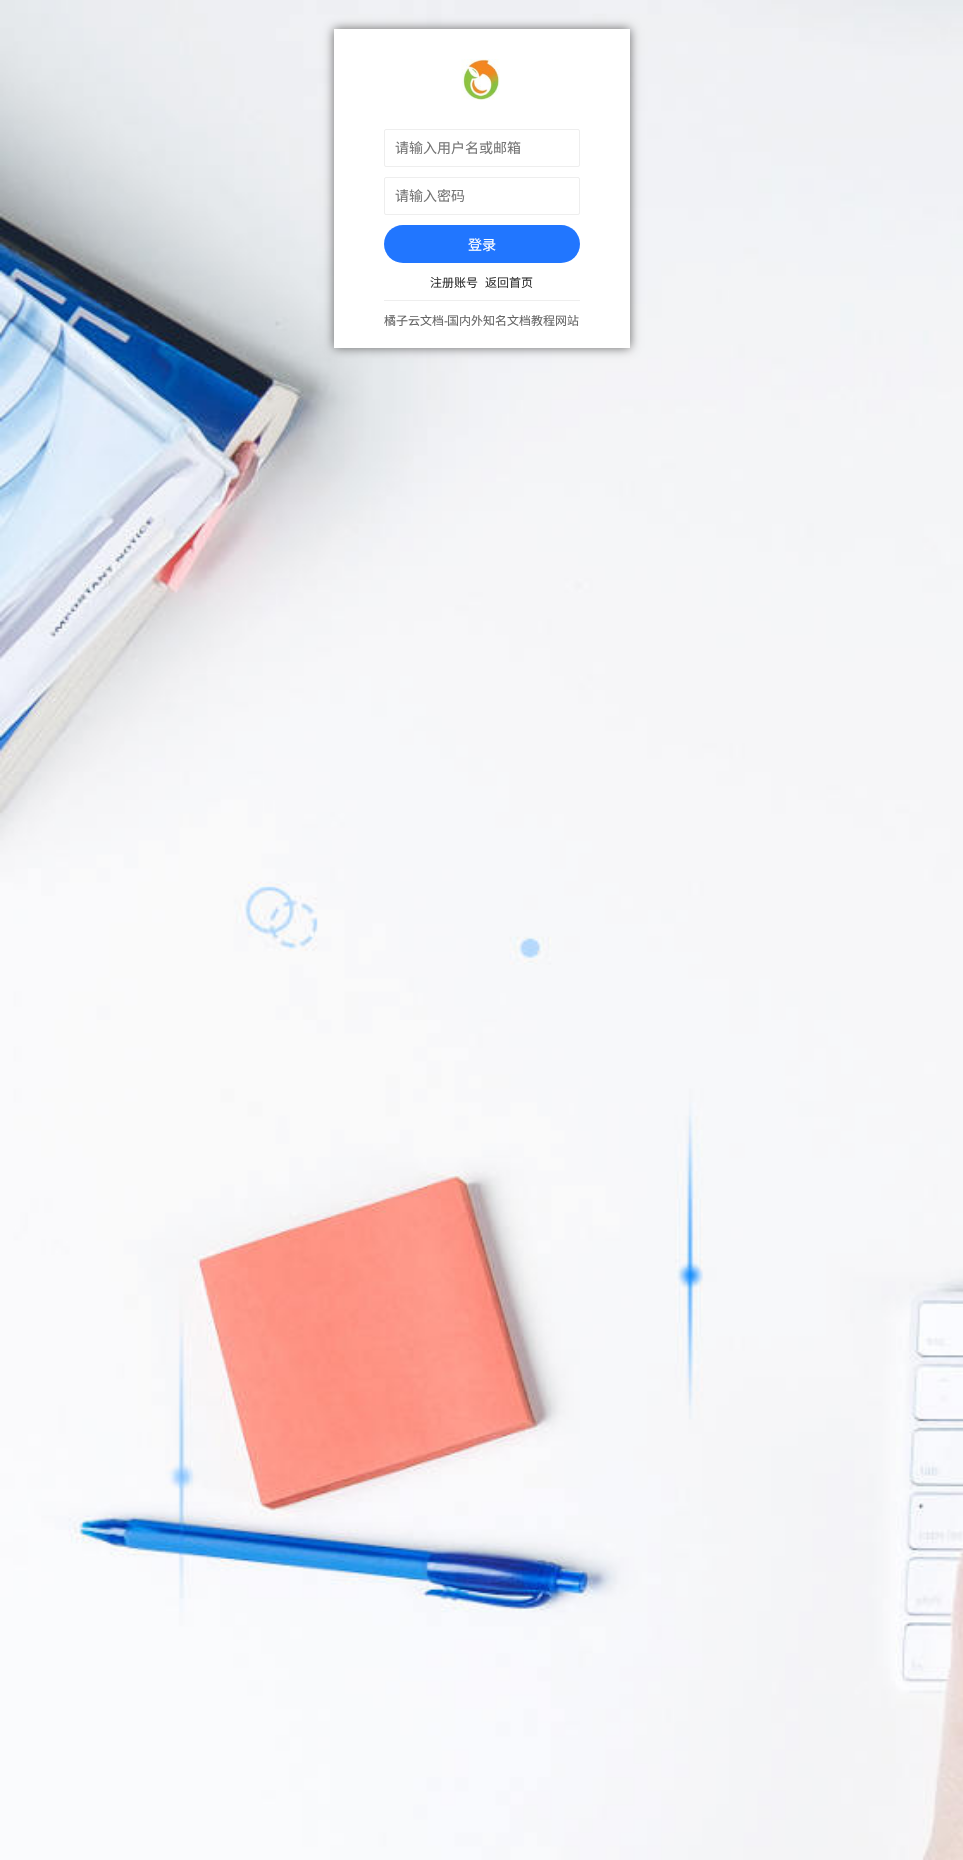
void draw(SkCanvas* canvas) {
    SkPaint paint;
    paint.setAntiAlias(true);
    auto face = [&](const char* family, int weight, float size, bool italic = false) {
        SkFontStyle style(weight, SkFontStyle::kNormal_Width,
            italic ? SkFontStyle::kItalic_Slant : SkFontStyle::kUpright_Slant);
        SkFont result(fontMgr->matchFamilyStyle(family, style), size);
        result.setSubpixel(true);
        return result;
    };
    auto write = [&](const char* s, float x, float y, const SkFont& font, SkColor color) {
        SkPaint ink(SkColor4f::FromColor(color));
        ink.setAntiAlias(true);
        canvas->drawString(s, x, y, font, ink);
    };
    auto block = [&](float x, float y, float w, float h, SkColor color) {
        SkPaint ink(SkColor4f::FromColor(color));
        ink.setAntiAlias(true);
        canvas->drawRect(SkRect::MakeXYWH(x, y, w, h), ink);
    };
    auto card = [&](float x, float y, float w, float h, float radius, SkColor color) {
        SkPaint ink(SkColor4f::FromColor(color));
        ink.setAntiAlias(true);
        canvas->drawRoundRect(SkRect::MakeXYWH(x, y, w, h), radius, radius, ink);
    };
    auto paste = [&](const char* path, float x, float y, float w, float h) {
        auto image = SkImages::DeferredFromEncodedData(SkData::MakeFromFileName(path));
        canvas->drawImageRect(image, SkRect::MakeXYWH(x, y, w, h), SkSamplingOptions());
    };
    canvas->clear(SK_ColorWHITE);
    paste("pic1.png", 0, 0, 963, 1860);
    paint.setColor(SkColorSetRGB(102, 102, 102));
    paint.setMaskFilter(SkMaskFilter::MakeBlur(kNormal_SkBlurStyle, 5));
    canvas->drawRect(SkRect::MakeXYWH(334, 29, 296, 319), paint);
    paint.setMaskFilter(nullptr);
    block(334, 29, 296, 319, SK_ColorWHITE);
    paste("pic2.png", 461, 59, 39, 41);
    paint.setStyle(SkPaint::kStroke_Style);
    paint.setStrokeWidth(1);
    paint.setColor(SkColorSetRGB(238, 238, 238));
    canvas->drawRoundRect(SkRect::MakeXYWH(384.5f, 129.5f, 195, 37), 1.5f, 1.5f, paint);
    auto kFont1 = face("Noto Sans CJK SC", 400, 14);
    write("请输入用户名或邮箱", 395, 153, kFont1, SkColorSetRGB(117, 117, 117));
    canvas->drawRoundRect(SkRect::MakeXYWH(384.5f, 177.5f, 195, 37), 1.5f, 1.5f, paint);
    write("请输入密码", 395, 201, kFont1, SkColorSetRGB(117, 117, 117));
    card(384, 225, 196, 38, 19, SkColorSetRGB(33, 118, 255));
    write("登录", 468, 250, kFont1, SK_ColorWHITE);
    auto kFont2 = face("Noto Sans CJK SC", 400, 12);
    write("注册账号", 430, 287, kFont2, SkColorSetRGB(51, 51, 51));
    write("返回首页", 485, 287, kFont2, SkColorSetRGB(51, 51, 51));
    block(384, 300, 196, 1, SkColorSetRGB(238, 238, 238));
    write("橘子云文档", 384, 325, kFont2, SkColorSetRGB(102, 102, 102));
    auto kFont3 = face("Liberation Sans", 400, 12);
    write("-", 444, 325, kFont3, SkColorSetRGB(102, 102, 102));
    write("国内外知名文档教程网站", 447, 325, kFont2, SkColorSetRGB(102, 102, 102));
}
